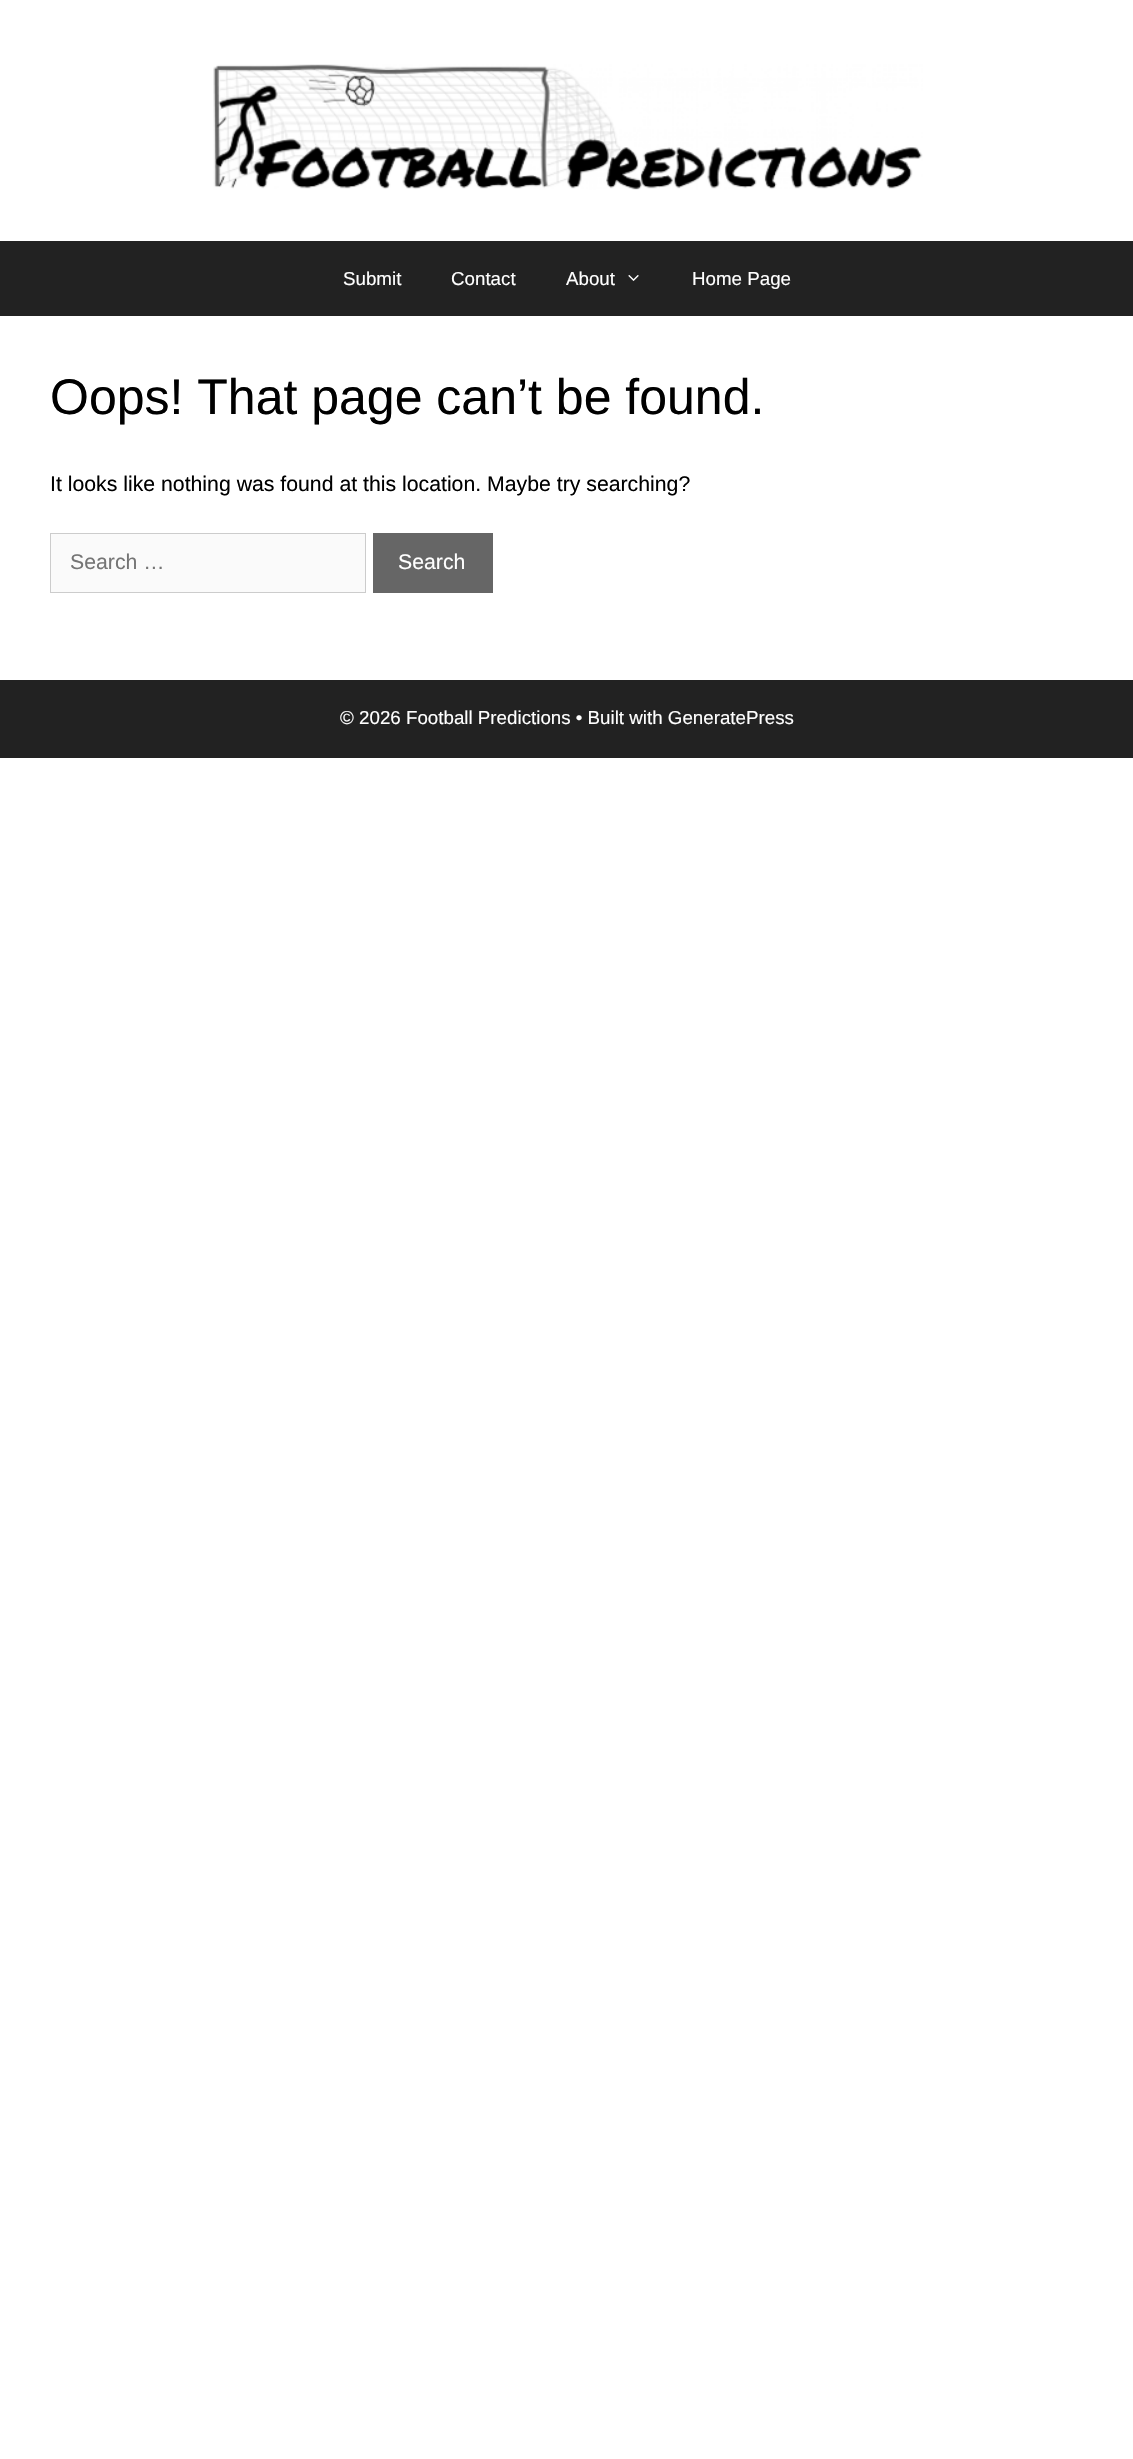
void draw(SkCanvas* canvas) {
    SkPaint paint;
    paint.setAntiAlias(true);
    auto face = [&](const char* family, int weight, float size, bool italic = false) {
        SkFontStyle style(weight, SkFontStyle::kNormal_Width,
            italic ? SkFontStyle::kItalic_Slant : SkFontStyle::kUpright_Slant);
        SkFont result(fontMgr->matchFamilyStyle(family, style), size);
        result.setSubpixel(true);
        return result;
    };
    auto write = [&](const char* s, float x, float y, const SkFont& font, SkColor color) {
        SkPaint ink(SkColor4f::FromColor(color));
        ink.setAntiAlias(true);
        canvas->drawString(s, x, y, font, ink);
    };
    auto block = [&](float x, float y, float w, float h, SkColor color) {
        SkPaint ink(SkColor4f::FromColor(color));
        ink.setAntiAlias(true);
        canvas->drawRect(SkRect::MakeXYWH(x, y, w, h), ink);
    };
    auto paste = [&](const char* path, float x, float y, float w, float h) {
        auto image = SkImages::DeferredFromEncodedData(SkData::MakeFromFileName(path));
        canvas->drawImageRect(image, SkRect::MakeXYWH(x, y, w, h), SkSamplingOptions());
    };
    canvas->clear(SK_ColorWHITE);
    paste("pic1.png", 213, 64, 710, 126);
    block(0, 241, 1133, 75, SkColorSetRGB(34, 34, 34));
    auto kFont1 = face("Liberation Sans", 400, 18.75f);
    write("Submit", 343, 285, kFont1, SK_ColorWHITE);
    write("Contact", 451, 285, kFont1, SK_ColorWHITE);
    write("About", 566, 285, kFont1, SK_ColorWHITE);
    paste("pic2.png", 628, 275, 11, 6);
    write("Home Page", 692, 285, kFont1, SK_ColorWHITE);
    auto kFont2 = face("Liberation Sans", 400, 50);
    write("Oops! That page can’t be found.", 50, 414, kFont2, SK_ColorBLACK);
    auto kFont3 = face("Liberation Sans", 400, 21.25f);
    write("It looks like nothing was found at this location. Maybe try searching?", 50, 491, kFont3, SK_ColorBLACK);
    paint.setColor(SkColorSetRGB(250, 250, 250));
    canvas->drawRect(SkRect::MakeXYWH(50.5f, 533.5f, 315, 59), paint);
    paint.setStyle(SkPaint::kStroke_Style);
    paint.setStrokeWidth(1);
    paint.setColor(SkColorSetRGB(204, 204, 204));
    canvas->drawRect(SkRect::MakeXYWH(50.5f, 533.5f, 315, 59), paint);
    write("Search …", 70, 569, kFont3, SkColorSetRGB(117, 117, 117));
    block(373, 533, 120, 60, SkColorSetRGB(102, 102, 102));
    write("Search", 398, 569, kFont3, SK_ColorWHITE);
    block(0, 680, 1133, 78, SkColorSetRGB(34, 34, 34));
    write("© 2026 Football Predictions • Built with GeneratePress", 340, 724, kFont1, SK_ColorWHITE);
}
